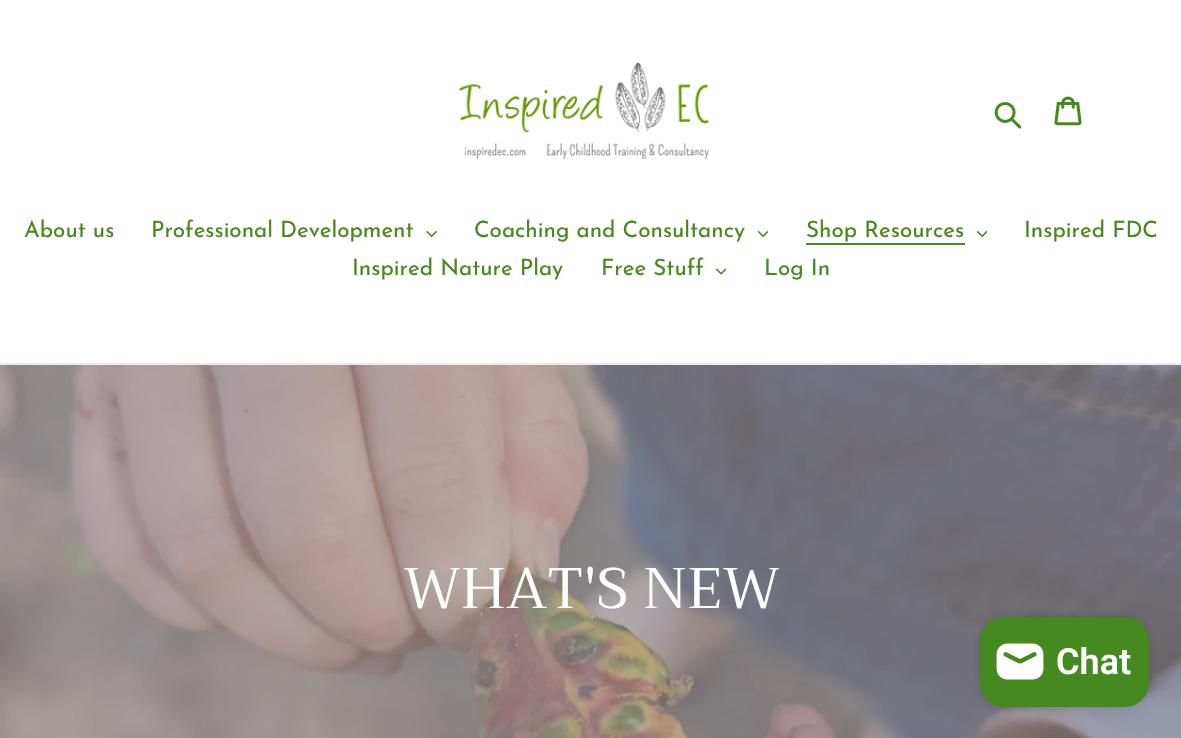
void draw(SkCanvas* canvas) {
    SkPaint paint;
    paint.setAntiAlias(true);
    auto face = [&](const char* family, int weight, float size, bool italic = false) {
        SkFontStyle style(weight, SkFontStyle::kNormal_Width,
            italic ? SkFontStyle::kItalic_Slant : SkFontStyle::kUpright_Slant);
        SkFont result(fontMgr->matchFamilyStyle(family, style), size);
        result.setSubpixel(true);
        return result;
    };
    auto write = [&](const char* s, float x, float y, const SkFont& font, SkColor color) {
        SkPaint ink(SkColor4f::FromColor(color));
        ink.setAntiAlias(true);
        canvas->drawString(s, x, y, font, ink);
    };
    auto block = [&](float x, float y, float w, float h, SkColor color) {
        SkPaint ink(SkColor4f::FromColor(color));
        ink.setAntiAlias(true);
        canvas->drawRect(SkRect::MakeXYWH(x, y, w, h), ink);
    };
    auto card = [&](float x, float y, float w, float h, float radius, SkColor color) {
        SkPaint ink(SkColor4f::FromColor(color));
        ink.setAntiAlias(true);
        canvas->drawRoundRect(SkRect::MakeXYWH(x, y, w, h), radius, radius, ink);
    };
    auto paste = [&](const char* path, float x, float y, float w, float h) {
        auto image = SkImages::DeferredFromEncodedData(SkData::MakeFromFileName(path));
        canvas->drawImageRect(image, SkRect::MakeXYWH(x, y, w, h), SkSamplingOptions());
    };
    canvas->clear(SK_ColorWHITE);
    paste("pic1.png", 459, 62, 250, 98);
    paste("pic2.png", 994, 102, 28, 27);
    paste("pic3.png", 1054, 96, 28, 30);
    block(0, 363, 1181, 2, SkColorSetRGB(235, 235, 235));
    auto kFont1 = face("Josefin Sans", 400, 22.5f);
    write("About us", 24, 237, kFont1, SkColorSetRGB(69, 137, 31));
    write("Professional Development", 151, 237, kFont1, SkColorSetRGB(69, 137, 31));
    paste("pic4.png", 426, 231, 11, 6);
    write("Coaching and Consultancy", 474, 237, kFont1, SkColorSetRGB(69, 137, 31));
    paste("pic5.png", 758, 231, 10, 6);
    write("Shop Resources", 806, 237, kFont1, SkColorSetRGB(69, 137, 31));
    block(806, 243, 159, 2, SkColorSetRGB(69, 137, 31));
    paste("pic5.png", 977, 231, 10, 6);
    write("Inspired FDC", 1024, 237, kFont1, SkColorSetRGB(69, 137, 31));
    write("Inspired Nature Play", 352, 275, kFont1, SkColorSetRGB(69, 137, 31));
    write("Free Stuff", 601, 275, kFont1, SkColorSetRGB(69, 137, 31));
    paste("pic6.png", 716, 268, 10, 7);
    write("Log In", 764, 275, kFont1, SkColorSetRGB(69, 137, 31));
    paste("pic7.png", 0, 365, 1181, 373);
    auto kFont2 = face("Trirong", 400, 57);
    write("WHAT'S NEW", 403, 608, kFont2, SK_ColorWHITE);
    paint.setColor(SkColorSetARGB(38, 0, 0, 0));
    paint.setMaskFilter(SkMaskFilter::MakeBlur(kNormal_SkBlurStyle, 4));
    canvas->drawRoundRect(SkRect::MakeXYWH(980, 617, 169, 90), 24, 24, paint);
    paint.setMaskFilter(nullptr);
    card(980, 617, 169, 90, 24, SkColorSetRGB(69, 137, 31));
    paste("pic8.png", 996, 643, 48, 37);
    auto kFont3 = face("Roboto", 600, 36);
    write("Chat", 1056, 674, kFont3, SK_ColorWHITE);
}
